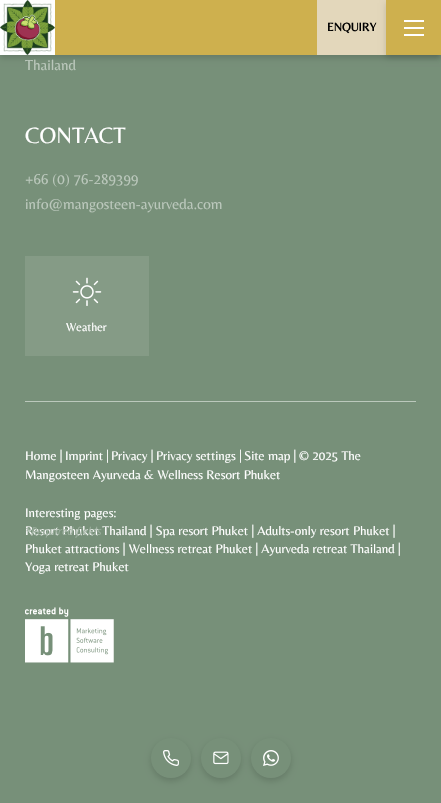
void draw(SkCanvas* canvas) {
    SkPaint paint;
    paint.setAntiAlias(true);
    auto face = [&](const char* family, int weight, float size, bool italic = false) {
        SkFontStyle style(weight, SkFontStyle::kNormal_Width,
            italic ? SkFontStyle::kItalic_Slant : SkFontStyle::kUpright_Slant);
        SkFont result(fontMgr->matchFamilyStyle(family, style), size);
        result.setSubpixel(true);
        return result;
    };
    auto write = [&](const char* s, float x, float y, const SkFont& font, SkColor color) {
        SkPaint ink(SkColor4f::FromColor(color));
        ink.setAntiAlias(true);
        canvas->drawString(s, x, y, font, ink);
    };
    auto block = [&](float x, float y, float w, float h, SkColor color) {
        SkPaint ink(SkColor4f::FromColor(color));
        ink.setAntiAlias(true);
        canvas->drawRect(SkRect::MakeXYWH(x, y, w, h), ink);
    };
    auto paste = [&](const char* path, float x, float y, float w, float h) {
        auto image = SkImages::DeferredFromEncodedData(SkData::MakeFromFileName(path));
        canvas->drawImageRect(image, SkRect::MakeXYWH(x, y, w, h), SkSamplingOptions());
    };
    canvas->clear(SkColorSetRGB(119, 144, 121));
    paint.setColor(SkColorSetARGB(38, 0, 0, 0));
    paint.setMaskFilter(SkMaskFilter::MakeBlur(kNormal_SkBlurStyle, 3));
    canvas->drawRect(SkRect::MakeXYWH(0, 3, 441, 55), paint);
    paint.setMaskFilter(nullptr);
    block(55, 0, 386, 55, SkColorSetRGB(206, 176, 78));
    paste("pic1.png", 0, 0, 55, 55);
    block(317, 0, 69, 55, SkColorSetRGB(227, 215, 187));
    auto kFont1 = face("Belleza", 700, 12);
    write("ENQUIRY", 327, 31, kFont1, SK_ColorBLACK);
    canvas->save();
    canvas->clipPath(SkPathBuilder(SkPathFillType::kEvenOdd).moveTo(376, 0).lineTo(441, 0).lineTo(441, 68).lineTo(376, 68).close().moveTo(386, 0).lineTo(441, 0).lineTo(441, 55).lineTo(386, 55).close().detach(), true);
    paint.setMaskFilter(SkMaskFilter::MakeBlur(kNormal_SkBlurStyle, 3));
    canvas->drawRect(SkRect::MakeXYWH(386, 3, 55, 55), paint);
    paint.setMaskFilter(nullptr);
    canvas->restore();
    block(404, 20, 20, 2, SK_ColorWHITE);
    block(404, 27, 20, 2, SK_ColorWHITE);
    block(404, 34, 20, 2, SK_ColorWHITE);
    paint.setMaskFilter(SkMaskFilter::MakeBlur(kNormal_SkBlurStyle, 3));
    canvas->drawRoundRect(SkRect::MakeXYWH(151, 741, 40, 40), 20, 20, paint);
    paint.setMaskFilter(nullptr);
    paint.setColor(SkColorSetRGB(119, 144, 121));
    canvas->drawCircle(171, 758, 20, paint);
    paste("pic2.png", 163, 750, 16, 16);
    paint.setColor(SkColorSetARGB(38, 0, 0, 0));
    paint.setMaskFilter(SkMaskFilter::MakeBlur(kNormal_SkBlurStyle, 3));
    canvas->drawRoundRect(SkRect::MakeXYWH(201, 741, 40, 40), 20, 20, paint);
    paint.setMaskFilter(nullptr);
    paint.setColor(SkColorSetRGB(119, 144, 121));
    canvas->drawCircle(221, 758, 20, paint);
    paste("pic3.png", 213, 751, 16, 14);
    paint.setColor(SkColorSetARGB(38, 0, 0, 0));
    paint.setMaskFilter(SkMaskFilter::MakeBlur(kNormal_SkBlurStyle, 3));
    canvas->drawRoundRect(SkRect::MakeXYWH(251, 741, 40, 40), 20, 20, paint);
    paint.setMaskFilter(nullptr);
    paint.setColor(SkColorSetRGB(119, 144, 121));
    canvas->drawCircle(271, 758, 20, paint);
    paste("pic4.png", 263, 750, 16, 16);
    auto kFont2 = face("Belleza", 400, 15);
    write("Thailand", 25, 70, kFont2, SkColorSetRGB(187, 200, 188));
    auto kFont3 = face("Belleza", 400, 23);
    write("CONTACT", 25, 143, kFont3, SK_ColorWHITE);
    write("+66 (0) 76-289399", 25, 184, kFont2, SkColorSetRGB(187, 200, 188));
    write("info@mangosteen-ayurveda.com", 25, 209, kFont2, SkColorSetRGB(187, 200, 188));
    block(25, 256, 124, 100, SkColorSetRGB(133, 155, 134));
    paste("pic5.png", 72, 277, 30, 29);
    auto kFont4 = face("Belleza", 400, 12);
    write("Weather", 66, 331, kFont4, SK_ColorWHITE);
    block(25, 401, 391, 1, SkColorSetRGB(187, 200, 188));
    auto kFont5 = face("Belleza", 400, 13);
    write("Home |", 25, 460, kFont5, SK_ColorWHITE);
    write("Imprint |", 65, 460, kFont5, SK_ColorWHITE);
    write("Privacy |", 111, 460, kFont5, SK_ColorWHITE);
    write("Privacy settings |", 156, 460, kFont5, SK_ColorWHITE);
    write("Site map |", 244, 460, kFont5, SK_ColorWHITE);
    write("© 2025 The", 299, 460, kFont5, SK_ColorWHITE);
    write("Mangosteen Ayurveda & Wellness Resort Phuket", 25, 479, kFont5, SK_ColorWHITE);
    write("Interesting pages:", 25, 517, kFont5, SK_ColorWHITE);
    write("Resort Phuket Thailand | Spa resort Phuket | Adults-only resort Phuket |", 25, 535, kFont5, SK_ColorWHITE);
    write("Phuket attractions | Wellness retreat Phuket | Ayurveda retreat Thailand |", 25, 553, kFont5, SK_ColorWHITE);
    write("Yoga retreat Phuket", 25, 571, kFont5, SK_ColorWHITE);
    paste("pic6.png", 25, 607, 89, 56);
    auto kFont6 = face("Noto Sans", 400, 10.75f, true);
    write("*Required fields", 25, 535, kFont6, SkColorSetRGB(155, 174, 157));
}
